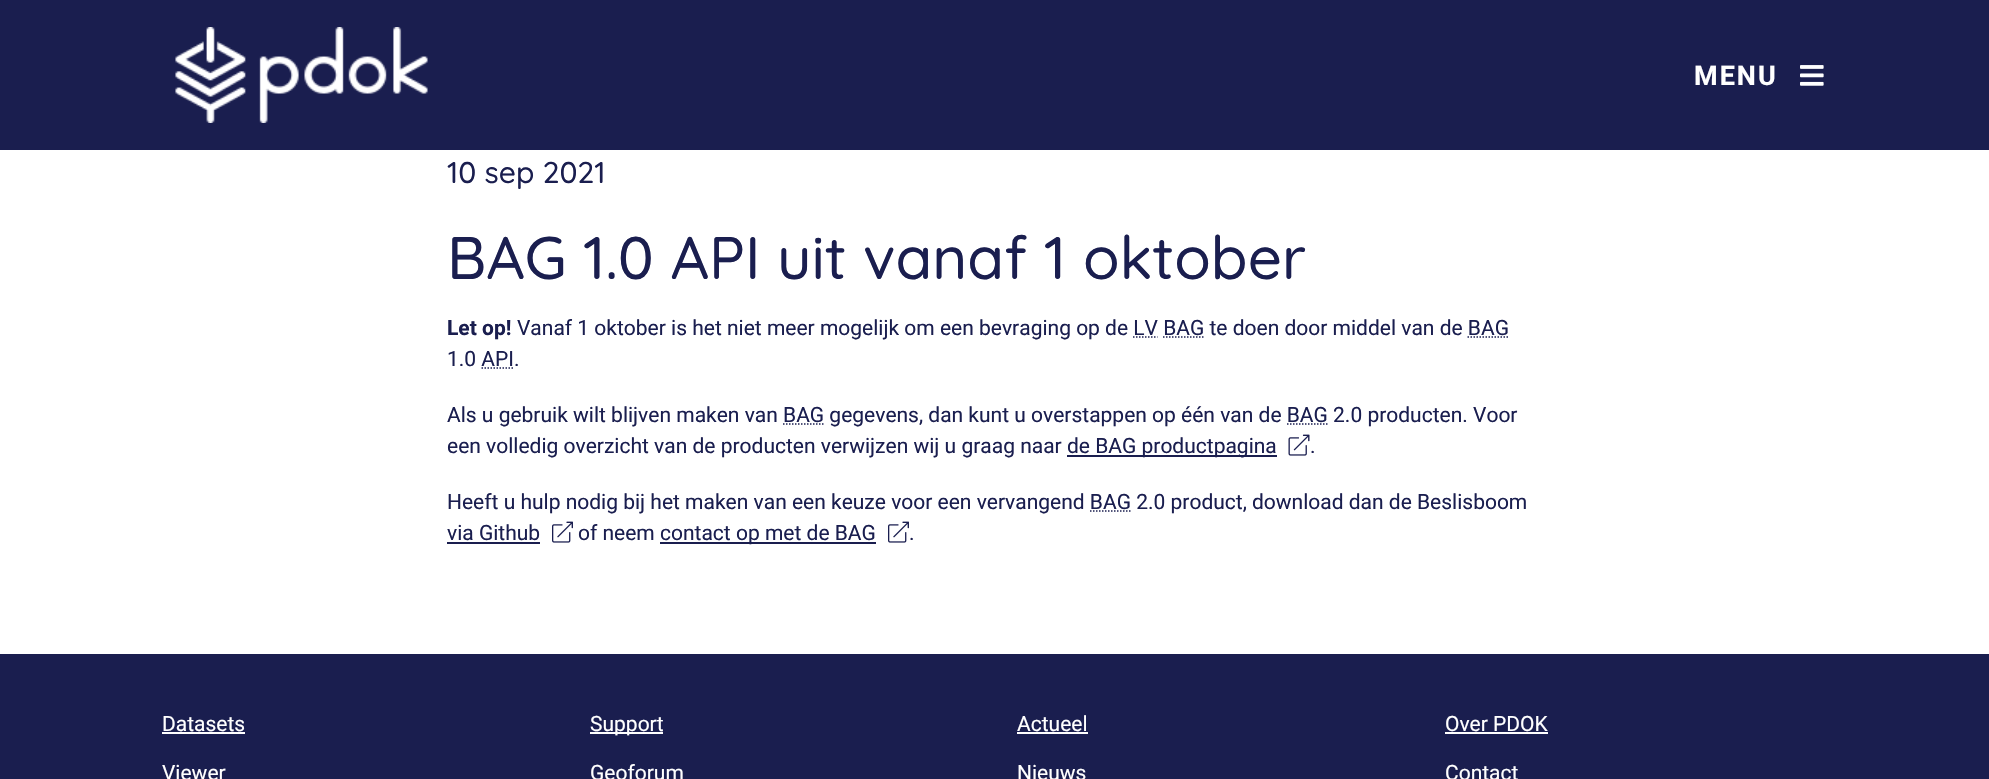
void draw(SkCanvas* canvas) {
    SkPaint paint;
    paint.setAntiAlias(true);
    auto face = [&](const char* family, int weight, float size, bool italic = false) {
        SkFontStyle style(weight, SkFontStyle::kNormal_Width,
            italic ? SkFontStyle::kItalic_Slant : SkFontStyle::kUpright_Slant);
        SkFont result(fontMgr->matchFamilyStyle(family, style), size);
        result.setSubpixel(true);
        return result;
    };
    auto write = [&](const char* s, float x, float y, const SkFont& font, SkColor color) {
        SkPaint ink(SkColor4f::FromColor(color));
        ink.setAntiAlias(true);
        canvas->drawString(s, x, y, font, ink);
    };
    auto writeSpaced = [&](const char* s, float x, float y, const SkFont& font, const SkPaint& ink, float letter, float word) {
        std::vector<SkGlyphID> glyphs(font.countText(s, strlen(s), SkTextEncoding::kUTF8));
        std::vector<float> xs(glyphs.size());
        font.textToGlyphs(s, strlen(s), SkTextEncoding::kUTF8, glyphs);
        font.getXPos(glyphs, xs, x);
        float extra = 0;
        for (size_t i = 0; i < glyphs.size(); i++) {
            xs[i] += extra;
            extra += letter + word * (glyphs[i] == font.unicharToGlyph(' '));
        }
        canvas->drawTextBlob(SkTextBlob::MakeFromPosHGlyphs(glyphs, xs, y, font), 0, 0, ink);
    };
    auto block = [&](float x, float y, float w, float h, SkColor color) {
        SkPaint ink(SkColor4f::FromColor(color));
        ink.setAntiAlias(true);
        canvas->drawRect(SkRect::MakeXYWH(x, y, w, h), ink);
    };
    auto paste = [&](const char* path, float x, float y, float w, float h) {
        auto image = SkImages::DeferredFromEncodedData(SkData::MakeFromFileName(path));
        canvas->drawImageRect(image, SkRect::MakeXYWH(x, y, w, h), SkSamplingOptions());
    };
    canvas->clear(SK_ColorWHITE);
    block(0, 0, 1989, 150, SkColorSetRGB(26, 30, 79));
    paste("pic1.png", 175, 27, 253, 96);
    auto kFont1 = face("Roboto", 700, 27);
    paint.setColor(SK_ColorWHITE);
    writeSpaced("MENU", 1694, 85, kFont1, paint, 2, 0);
    paste("pic2.png", 1800, 65, 24, 21);
    auto kFont2 = face("Quicksand", 500, 30);
    write("10 sep 2021", 447, 183, kFont2, SkColorSetRGB(26, 30, 79));
    auto kFont3 = face("Quicksand", 500, 60);
    write("BAG 1.0 API uit vanaf 1 oktober", 447, 279, kFont3, SkColorSetRGB(26, 30, 79));
    auto kFont4 = face("Roboto", 700, 21);
    write("Let op!", 447, 335, kFont4, SkColorSetRGB(26, 30, 79));
    auto kFont5 = face("Roboto", 400, 21);
    write("Vanaf 1 oktober is het niet meer mogelijk om een bevraging op de LV BAG te doen door middel van de BAG", 517, 335, kFont5, SkColorSetRGB(26, 30, 79));
    paint.setStyle(SkPaint::kStroke_Style);
    paint.setStrokeWidth(1.5f);
    paint.setColor(SkColorSetRGB(26, 30, 79));
    paint.setPathEffect(SkDashPathEffect::Make({{1.5f, 1.5f}}, 0));
    canvas->drawPath(SkPathBuilder().moveTo(1133, 337).lineTo(1157.5f, 337).detach(), paint);
    paint.setPathEffect(nullptr);
    paint.setPathEffect(SkDashPathEffect::Make({{1.5f, 1.5f}}, 0));
    canvas->drawPath(SkPathBuilder().moveTo(1163, 337).lineTo(1204, 337).detach(), paint);
    paint.setPathEffect(nullptr);
    paint.setPathEffect(SkDashPathEffect::Make({{1.5f, 1.5f}}, 0));
    canvas->drawPath(SkPathBuilder().moveTo(1467.5f, 337).lineTo(1508.5f, 337).detach(), paint);
    paint.setPathEffect(nullptr);
    write("1.0 API.", 447, 366, kFont5, SkColorSetRGB(26, 30, 79));
    paint.setPathEffect(SkDashPathEffect::Make({{1.5f, 1.5f}}, 0));
    canvas->drawPath(SkPathBuilder().moveTo(481.5f, 368).lineTo(514, 368).detach(), paint);
    paint.setPathEffect(nullptr);
    write("Als u gebruik wilt blijven maken van BAG gegevens, dan kunt u overstappen op één van de BAG 2.0 producten. Voor", 447, 422, kFont5, SkColorSetRGB(26, 30, 79));
    paint.setPathEffect(SkDashPathEffect::Make({{1.5f, 1.5f}}, 0));
    canvas->drawPath(SkPathBuilder().moveTo(783, 424).lineTo(824, 424).detach(), paint);
    paint.setPathEffect(nullptr);
    paint.setPathEffect(SkDashPathEffect::Make({{1.5f, 1.5f}}, 0));
    canvas->drawPath(SkPathBuilder().moveTo(1287, 424).lineTo(1328, 424).detach(), paint);
    paint.setPathEffect(nullptr);
    write("een volledig overzicht van de producten verwijzen wij u graag naar", 447, 453, kFont5, SkColorSetRGB(26, 30, 79));
    block(1067, 455, 210, 2, SkColorSetRGB(26, 30, 79));
    write("de BAG productpagina", 1067, 453, kFont5, SkColorSetRGB(26, 30, 79));
    paste("pic3.png", 1288, 434, 22, 22);
    write(".", 1310, 453, kFont5, SkColorSetRGB(26, 30, 79));
    write("Heeft u hulp nodig bij het maken van een keuze voor een vervangend BAG 2.0 product, download dan de Beslisboom", 447, 509, kFont5, SkColorSetRGB(26, 30, 79));
    paint.setPathEffect(SkDashPathEffect::Make({{1.5f, 1.5f}}, 0));
    canvas->drawPath(SkPathBuilder().moveTo(1090, 511).lineTo(1131, 511).detach(), paint);
    paint.setPathEffect(nullptr);
    write("via Github", 447, 540, kFont5, SkColorSetRGB(26, 30, 79));
    block(447, 542, 93, 2, SkColorSetRGB(26, 30, 79));
    paste("pic4.png", 552, 521, 21, 22);
    write("of neem", 578, 540, kFont5, SkColorSetRGB(26, 30, 79));
    block(660, 542, 216, 2, SkColorSetRGB(26, 30, 79));
    write("contact op met de BAG", 660, 540, kFont5, SkColorSetRGB(26, 30, 79));
    paste("pic4.png", 888, 521, 21, 22);
    write(".", 909, 540, kFont5, SkColorSetRGB(26, 30, 79));
    block(0, 654, 1989, 125, SkColorSetRGB(26, 30, 79));
    write("Datasets", 162, 731, kFont5, SK_ColorWHITE);
    block(162, 732, 83, 2, SK_ColorWHITE);
    write("Viewer", 162, 780, kFont5, SK_ColorWHITE);
    block(590, 732, 73, 2, SK_ColorWHITE);
    write("Support", 590, 731, kFont5, SK_ColorWHITE);
    write("Geoforum", 590, 780, kFont5, SK_ColorWHITE);
    write("Actueel", 1017, 731, kFont5, SK_ColorWHITE);
    block(1017, 732, 71, 2, SK_ColorWHITE);
    write("Nieuws", 1017, 780, kFont5, SK_ColorWHITE);
    write("Over PDOK", 1445, 731, kFont5, SK_ColorWHITE);
    block(1445, 732, 103, 2, SK_ColorWHITE);
    write("Contact", 1445, 780, kFont5, SK_ColorWHITE);
}
